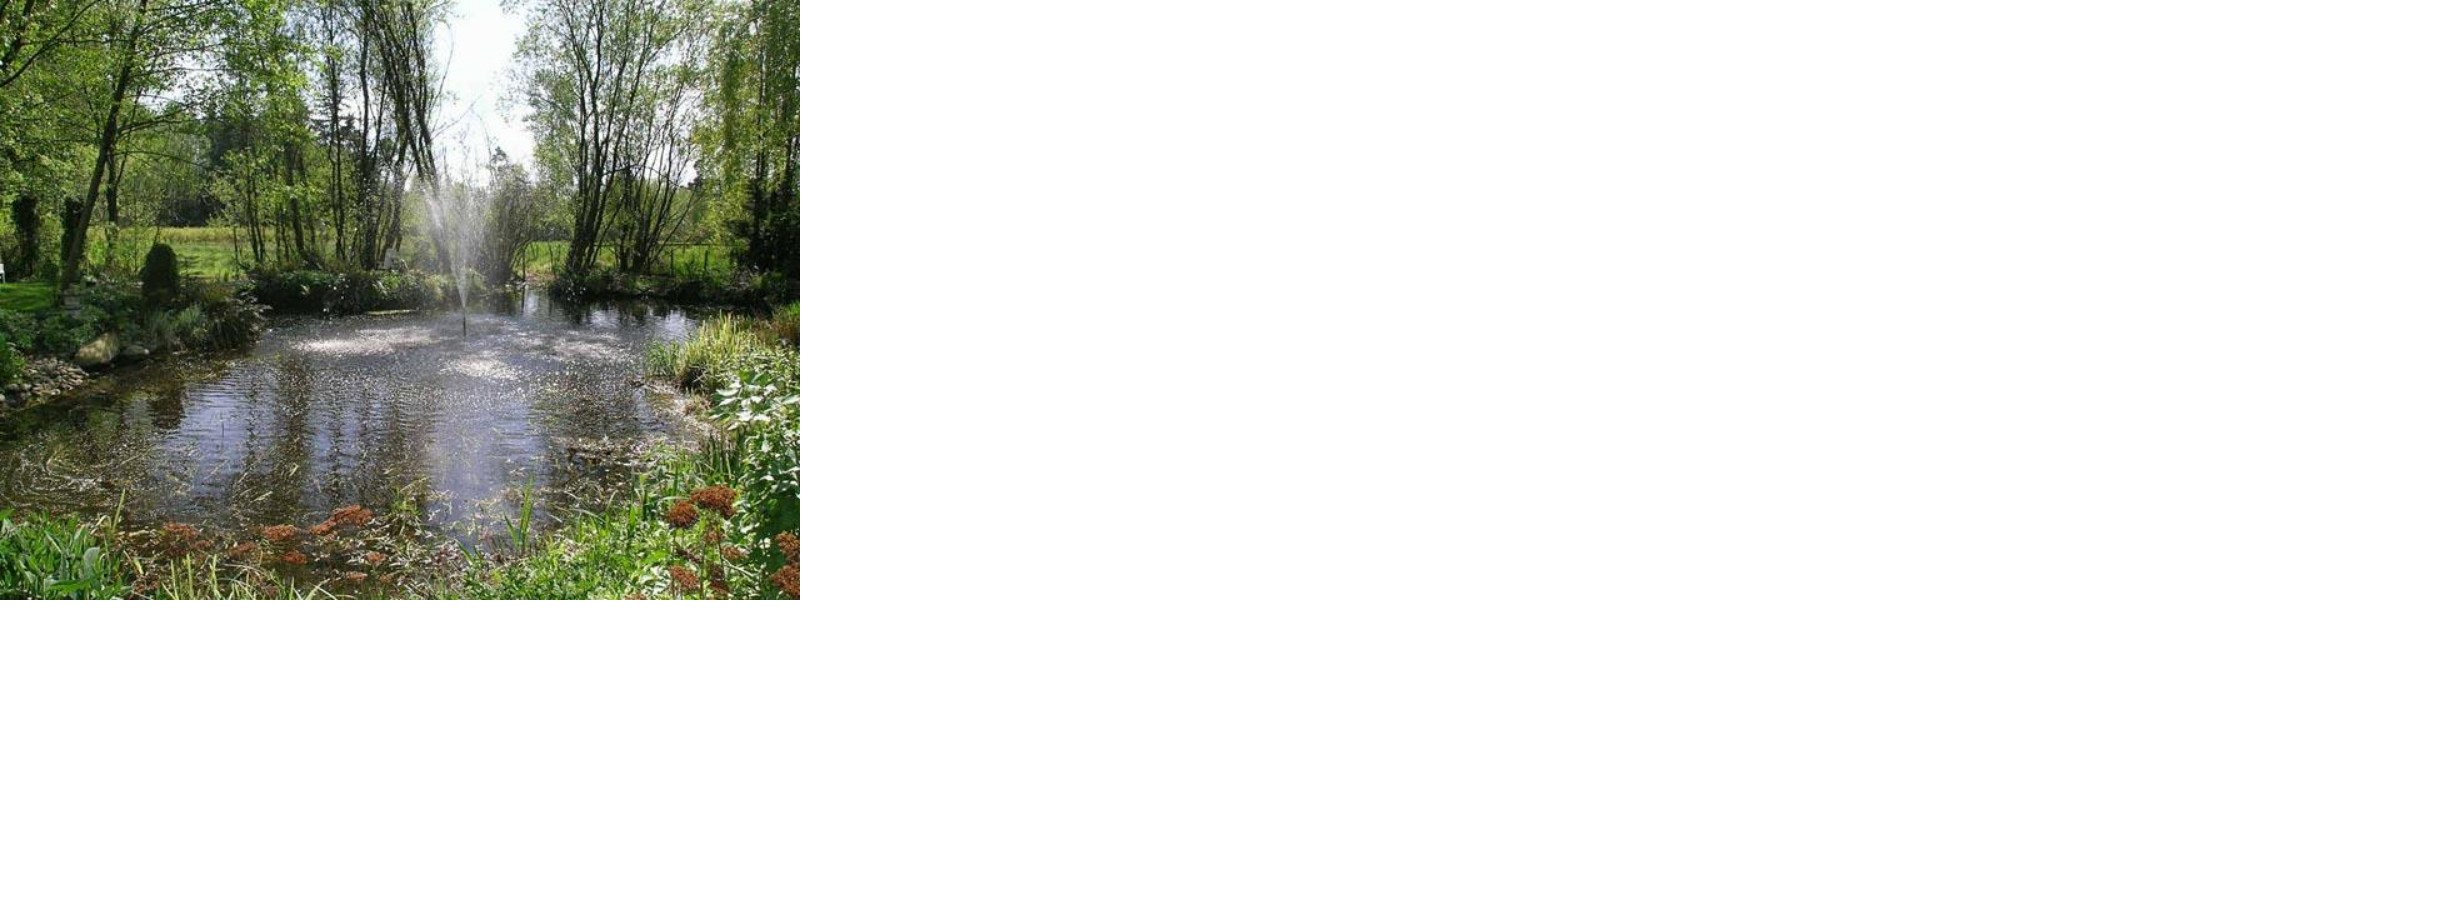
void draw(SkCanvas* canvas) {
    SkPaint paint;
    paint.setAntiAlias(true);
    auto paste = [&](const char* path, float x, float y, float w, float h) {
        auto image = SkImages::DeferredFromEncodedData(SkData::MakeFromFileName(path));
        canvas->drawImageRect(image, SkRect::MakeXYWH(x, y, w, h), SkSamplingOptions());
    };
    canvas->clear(SK_ColorWHITE);
    paste("pic1.png", 0, 0, 800, 600);
}
